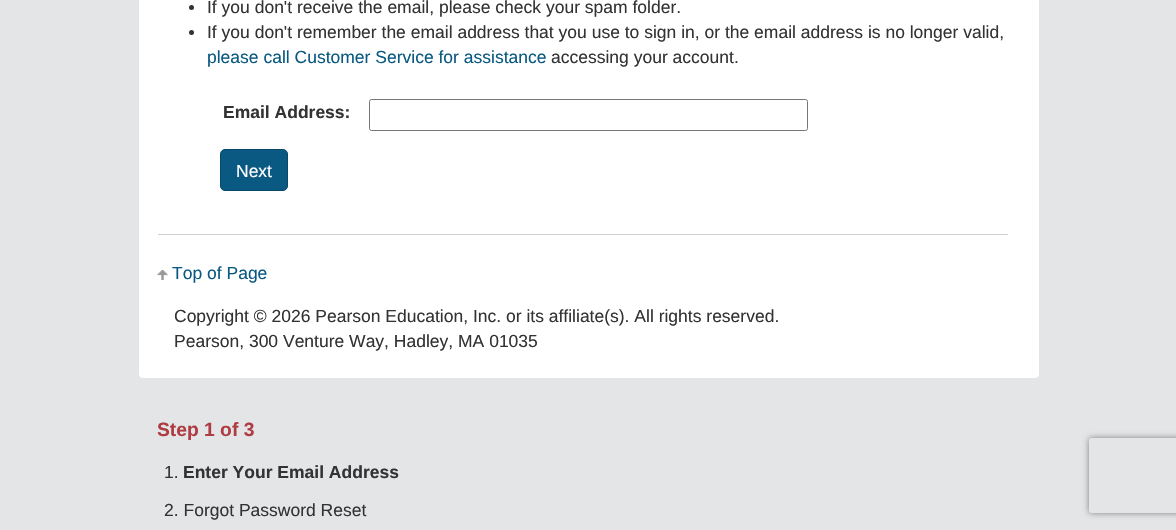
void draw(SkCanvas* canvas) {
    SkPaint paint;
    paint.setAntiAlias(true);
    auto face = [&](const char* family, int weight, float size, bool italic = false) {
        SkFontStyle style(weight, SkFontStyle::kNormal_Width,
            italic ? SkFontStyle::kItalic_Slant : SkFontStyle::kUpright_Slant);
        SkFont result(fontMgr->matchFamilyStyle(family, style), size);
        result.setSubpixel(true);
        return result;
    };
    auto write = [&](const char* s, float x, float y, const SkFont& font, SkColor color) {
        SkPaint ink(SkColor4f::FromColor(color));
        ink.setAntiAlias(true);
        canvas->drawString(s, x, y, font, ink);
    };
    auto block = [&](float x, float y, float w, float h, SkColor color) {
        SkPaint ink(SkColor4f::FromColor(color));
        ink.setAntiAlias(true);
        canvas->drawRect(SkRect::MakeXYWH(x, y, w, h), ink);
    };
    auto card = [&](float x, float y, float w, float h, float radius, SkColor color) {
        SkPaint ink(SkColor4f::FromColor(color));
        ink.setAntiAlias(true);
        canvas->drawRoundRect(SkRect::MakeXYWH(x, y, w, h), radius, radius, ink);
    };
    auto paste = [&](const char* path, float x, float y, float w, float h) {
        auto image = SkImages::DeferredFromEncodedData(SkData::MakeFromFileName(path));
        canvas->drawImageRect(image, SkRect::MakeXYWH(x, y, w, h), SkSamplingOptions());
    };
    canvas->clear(SkColorSetRGB(227, 229, 231));
    card(139, -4, 900, 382, 4, SK_ColorWHITE);
    paint.setColor(SkColorSetRGB(51, 51, 51));
    canvas->drawCircle(191.5f, 7.5f, 2.5f, paint);
    auto kFont1 = face("Liberation Sans", 400, 17.5f);
    write("If you don't receive the email, please check your spam folder.", 207, 13, kFont1, SkColorSetRGB(51, 51, 51));
    canvas->drawCircle(191.5f, 32.5f, 2.5f, paint);
    write("If you don't remember the email address that you use to sign in, or the email address is no longer valid,", 207, 38, kFont1, SkColorSetRGB(51, 51, 51));
    write("please call Customer Service for assistance", 207, 63, kFont1, SkColorSetRGB(9, 89, 130));
    write("accessing your account.", 551, 63, kFont1, SkColorSetRGB(51, 51, 51));
    auto kFont2 = face("Liberation Sans", 700, 17.5f);
    write("Email Address:", 223, 118, kFont2, SkColorSetRGB(51, 51, 51));
    paint.setStyle(SkPaint::kStroke_Style);
    paint.setStrokeWidth(1);
    paint.setColor(SkColorSetRGB(118, 118, 118));
    canvas->drawRoundRect(SkRect::MakeXYWH(369.5f, 99.5f, 438, 31), 2, 2, paint);
    paint.setStyle(SkPaint::kFill_Style);
    paint.setColor(SkColorSetRGB(9, 89, 130));
    canvas->drawRoundRect(SkRect::MakeXYWH(220.5f, 149.5f, 67, 41), 4.5f, 4.5f, paint);
    paint.setStyle(SkPaint::kStroke_Style);
    paint.setColor(SkColorSetRGB(7, 73, 106));
    canvas->drawRoundRect(SkRect::MakeXYWH(220.5f, 149.5f, 67, 41), 4.5f, 4.5f, paint);
    write("Next", 236, 177, kFont1, SK_ColorWHITE);
    block(158, 234, 850, 1, SkColorSetRGB(208, 208, 208));
    paste("pic1.png", 157, 270, 11, 10);
    write("Top of Page", 172, 279, kFont1, SkColorSetRGB(9, 89, 130));
    write("Copyright © 2026 Pearson Education, Inc. or its affiliate(s). All rights reserved.", 174, 322, kFont1, SkColorSetRGB(51, 51, 51));
    write("Pearson, 300 Venture Way, Hadley, MA 01035", 174, 347, kFont1, SkColorSetRGB(51, 51, 51));
    auto kFont3 = face("Liberation Sans", 700, 19.25f);
    write("Step 1 of 3", 157, 436, kFont3, SkColorSetRGB(175, 60, 67));
    write("1.", 164, 478, kFont1, SkColorSetRGB(51, 51, 51));
    write("Enter Your Email Address", 183, 478, kFont2, SkColorSetRGB(51, 51, 51));
    write("2. Forgot Password Reset", 164, 516, kFont1, SkColorSetRGB(51, 51, 51));
    canvas->save();
    canvas->clipPath(SkPathBuilder(SkPathFillType::kEvenOdd).moveTo(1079, 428).lineTo(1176, 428).lineTo(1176, 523).lineTo(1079, 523).close().moveTo(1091.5f, 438).lineTo(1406.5f, 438).cubicTo(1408, 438, 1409, 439, 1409, 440.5f).lineTo(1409, 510.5f).cubicTo(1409, 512, 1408, 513, 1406.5f, 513).lineTo(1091.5f, 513).cubicTo(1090, 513, 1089, 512, 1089, 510.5f).lineTo(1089, 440.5f).cubicTo(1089, 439, 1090, 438, 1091.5f, 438).close().detach(), true);
    paint.setStyle(SkPaint::kFill_Style);
    paint.setColor(SkColorSetRGB(128, 128, 128));
    paint.setMaskFilter(SkMaskFilter::MakeBlur(kNormal_SkBlurStyle, 3));
    canvas->drawRoundRect(SkRect::MakeXYWH(1089, 438, 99, 75), 2.5f, 2.5f, paint);
    paint.setMaskFilter(nullptr);
    canvas->restore();
}
